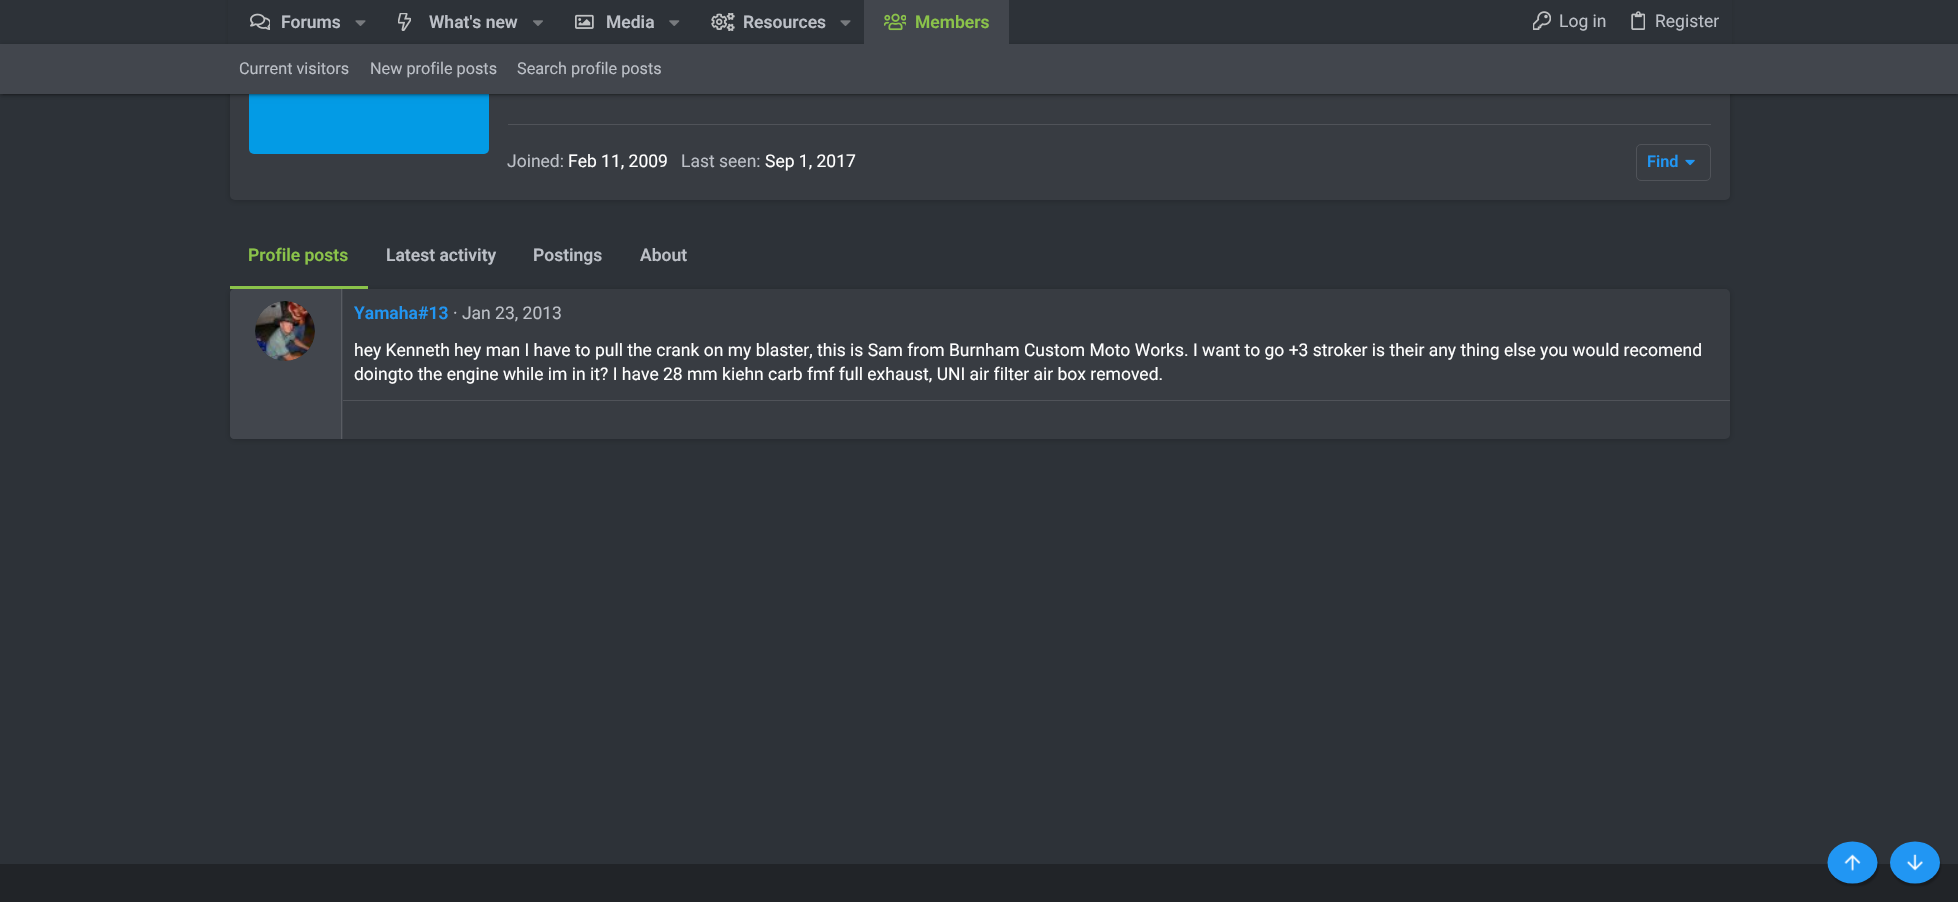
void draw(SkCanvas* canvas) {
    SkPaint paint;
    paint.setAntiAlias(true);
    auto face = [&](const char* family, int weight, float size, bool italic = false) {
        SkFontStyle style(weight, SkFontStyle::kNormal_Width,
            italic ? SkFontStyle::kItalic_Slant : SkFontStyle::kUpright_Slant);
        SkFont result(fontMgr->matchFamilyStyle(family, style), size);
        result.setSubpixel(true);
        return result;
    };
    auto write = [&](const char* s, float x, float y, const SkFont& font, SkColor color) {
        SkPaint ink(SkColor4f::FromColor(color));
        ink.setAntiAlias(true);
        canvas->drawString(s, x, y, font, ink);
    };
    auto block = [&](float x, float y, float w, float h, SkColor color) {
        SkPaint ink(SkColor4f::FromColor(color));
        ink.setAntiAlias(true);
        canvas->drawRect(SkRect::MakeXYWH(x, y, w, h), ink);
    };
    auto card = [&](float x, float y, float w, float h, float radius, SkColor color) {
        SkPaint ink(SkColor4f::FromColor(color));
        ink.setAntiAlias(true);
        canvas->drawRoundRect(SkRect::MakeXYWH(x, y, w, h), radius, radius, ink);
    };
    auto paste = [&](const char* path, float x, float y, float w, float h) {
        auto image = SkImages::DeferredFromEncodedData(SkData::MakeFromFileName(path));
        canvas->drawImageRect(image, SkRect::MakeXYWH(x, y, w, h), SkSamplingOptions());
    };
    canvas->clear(SkColorSetRGB(45, 50, 56));
    paint.setColor(SkColorSetARGB(51, 0, 0, 0));
    paint.setMaskFilter(SkMaskFilter::MakeBlur(kNormal_SkBlurStyle, 3));
    canvas->drawRoundRect(SkRect::MakeXYWH(230, -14, 1500, 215), 5, 5, paint);
    paint.setMaskFilter(nullptr);
    card(230, -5, 1500, 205, 5, SkColorSetRGB(56, 60, 66));
    card(249, -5, 240, 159, 5, SkColorSetRGB(3, 155, 229));
    block(228, 0, 1504, 44, SkColorSetRGB(45, 50, 56));
    paste("pic1.png", 250, 13, 20, 17);
    auto kFont1 = face("Roboto", 600, 17.5f);
    write("Forums", 281, 28, kFont1, SkColorSetRGB(188, 192, 199));
    paste("pic2.png", 355, 20, 11, 6);
    paste("pic3.png", 398, 13, 13, 18);
    write("What's new", 429, 28, kFont1, SkColorSetRGB(188, 192, 199));
    paste("pic4.png", 533, 20, 10, 6);
    paste("pic5.png", 575, 14, 19, 15);
    write("Media", 606, 28, kFont1, SkColorSetRGB(188, 192, 199));
    paste("pic6.png", 669, 20, 11, 6);
    paste("pic7.png", 711, 13, 24, 18);
    write("Resources", 743, 28, kFont1, SkColorSetRGB(188, 192, 199));
    paste("pic2.png", 840, 20, 11, 6);
    paint.setMaskFilter(SkMaskFilter::MakeBlur(kNormal_SkBlurStyle, 3));
    canvas->drawRect(SkRect::MakeXYWH(0, 45, 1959, 50), paint);
    paint.setMaskFilter(nullptr);
    paint.setColor(SkColorSetARGB(36, 0, 0, 0));
    paint.setMaskFilter(SkMaskFilter::MakeBlur(kNormal_SkBlurStyle, 1));
    canvas->drawRect(SkRect::MakeXYWH(0, 46, 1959, 50), paint);
    paint.setMaskFilter(nullptr);
    block(864, 0, 145, 44, SkColorSetRGB(66, 70, 77));
    paste("pic8.png", 884, 13, 22, 18);
    write("Members", 915, 28, kFont1, SkColorSetRGB(139, 195, 74));
    paste("pic9.png", 1533, 11, 18, 19);
    auto kFont2 = face("Roboto", 400, 17.5f);
    write("Log in", 1559, 27, kFont2, SkColorSetRGB(188, 192, 199));
    paste("pic10.png", 1631, 11, 14, 19);
    write("Register", 1655, 27, kFont2, SkColorSetRGB(188, 192, 199));
    paint.setColor(SkColorSetARGB(31, 0, 0, 0));
    paint.setMaskFilter(SkMaskFilter::MakeBlur(kNormal_SkBlurStyle, 0.5f));
    canvas->drawRect(SkRect::MakeXYWH(3, 50, 1953, 45), paint);
    paint.setMaskFilter(nullptr);
    block(0, 44, 1958, 50, SkColorSetRGB(66, 70, 77));
    auto kFont3 = face("Roboto", 400, 16.25f);
    write("Current visitors", 239, 74, kFont3, SkColorSetRGB(188, 192, 199));
    write("New profile posts", 370, 74, kFont3, SkColorSetRGB(188, 192, 199));
    write("Search profile posts", 517, 74, kFont3, SkColorSetRGB(188, 192, 199));
    block(508, 124, 1203, 1, SkColorSetRGB(80, 83, 89));
    write("Joined:", 507, 167, kFont2, SkColorSetRGB(188, 192, 199));
    write("Feb 11, 2009", 568, 167, kFont2, SK_ColorWHITE);
    write("Last seen:", 681, 167, kFont2, SkColorSetRGB(188, 192, 199));
    write("Sep 1, 2017", 765, 167, kFont2, SK_ColorWHITE);
    paint.setStyle(SkPaint::kStroke_Style);
    paint.setStrokeWidth(1);
    paint.setColor(SkColorSetRGB(80, 83, 89));
    canvas->drawRoundRect(SkRect::MakeXYWH(1636.5f, 144.5f, 74, 36), 4.5f, 4.5f, paint);
    auto kFont4 = face("Roboto", 600, 16.25f);
    write("Find", 1647, 167, kFont4, SkColorSetRGB(33, 150, 243));
    paste("pic11.png", 1685, 159, 10, 7);
    paint.setStyle(SkPaint::kFill_Style);
    paint.setColor(SkColorSetARGB(51, 0, 0, 0));
    paint.setMaskFilter(SkMaskFilter::MakeBlur(kNormal_SkBlurStyle, 3));
    canvas->drawRoundRect(SkRect::MakeXYWH(230, 290, 1500, 150), 5, 5, paint);
    paint.setMaskFilter(nullptr);
    block(230, 286, 138, 3, SkColorSetRGB(139, 195, 74));
    write("Profile posts", 248, 261, kFont1, SkColorSetRGB(139, 195, 74));
    write("Latest activity", 386, 261, kFont1, SkColorSetRGB(188, 192, 199));
    write("Postings", 533, 261, kFont1, SkColorSetRGB(188, 192, 199));
    write("About", 640, 261, kFont1, SkColorSetRGB(188, 192, 199));
    card(230, 289, 1500, 150, 5, SkColorSetRGB(56, 60, 66));
    paint.setColor(SkColorSetRGB(66, 70, 77));
    canvas->drawPath(SkPathBuilder().moveTo(234, 289).lineTo(343, 289).lineTo(343, 439).lineTo(234, 439).cubicTo(232, 439, 230, 437, 230, 435).lineTo(230, 293).cubicTo(230, 291, 232, 289, 234, 289).close().detach(), paint);
    block(341, 289, 1, 150, SkColorSetRGB(89, 92, 98));
    paint.setColor(SkColorSetRGB(56, 60, 66));
    canvas->drawCircle(285, 331, 30, paint);
    paste("pic12.png", 255, 301, 60, 60);
    write("Yamaha#13", 354, 319, kFont1, SkColorSetRGB(33, 150, 243));
    write("· Jan 23, 2013", 453, 319, kFont2, SkColorSetRGB(188, 192, 199));
    write("hey Kenneth hey man I have to pull the crank on my blaster, this is Sam from Burnham Custom Moto Works. I want to go +3 stroker is their any thing else you would recomend", 354, 356, kFont2, SK_ColorWHITE);
    write("doingto the engine while im in it? I have 28 mm kiehn carb fmf full exhaust, UNI air filter air box removed.", 354, 380, kFont2, SK_ColorWHITE);
    block(343, 400, 1387, 1, SkColorSetRGB(80, 83, 89));
    block(0, 864, 1958, 38, SkColorSetRGB(33, 36, 40));
    paint.setColor(SkColorSetARGB(64, 0, 0, 0));
    paint.setMaskFilter(SkMaskFilter::MakeBlur(kNormal_SkBlurStyle, 1));
    canvas->drawRoundRect(SkRect::MakeXYWH(1829, 844, 50, 42), 21, 21, paint);
    paint.setMaskFilter(nullptr);
    paint.setColor(SkColorSetRGB(33, 150, 243));
    canvas->drawOval(SkRect::MakeXYWH(1827.5f, 841.5f, 50, 42), paint);
    paste("pic13.png", 1844, 854, 17, 17);
    paint.setColor(SkColorSetARGB(64, 0, 0, 0));
    paint.setMaskFilter(SkMaskFilter::MakeBlur(kNormal_SkBlurStyle, 1));
    canvas->drawRoundRect(SkRect::MakeXYWH(1891, 844, 50, 42), 21, 21, paint);
    paint.setMaskFilter(nullptr);
    paint.setColor(SkColorSetRGB(33, 150, 243));
    canvas->drawOval(SkRect::MakeXYWH(1890, 841.5f, 50, 42), paint);
    paste("pic14.png", 1906, 854, 17, 17);
}
